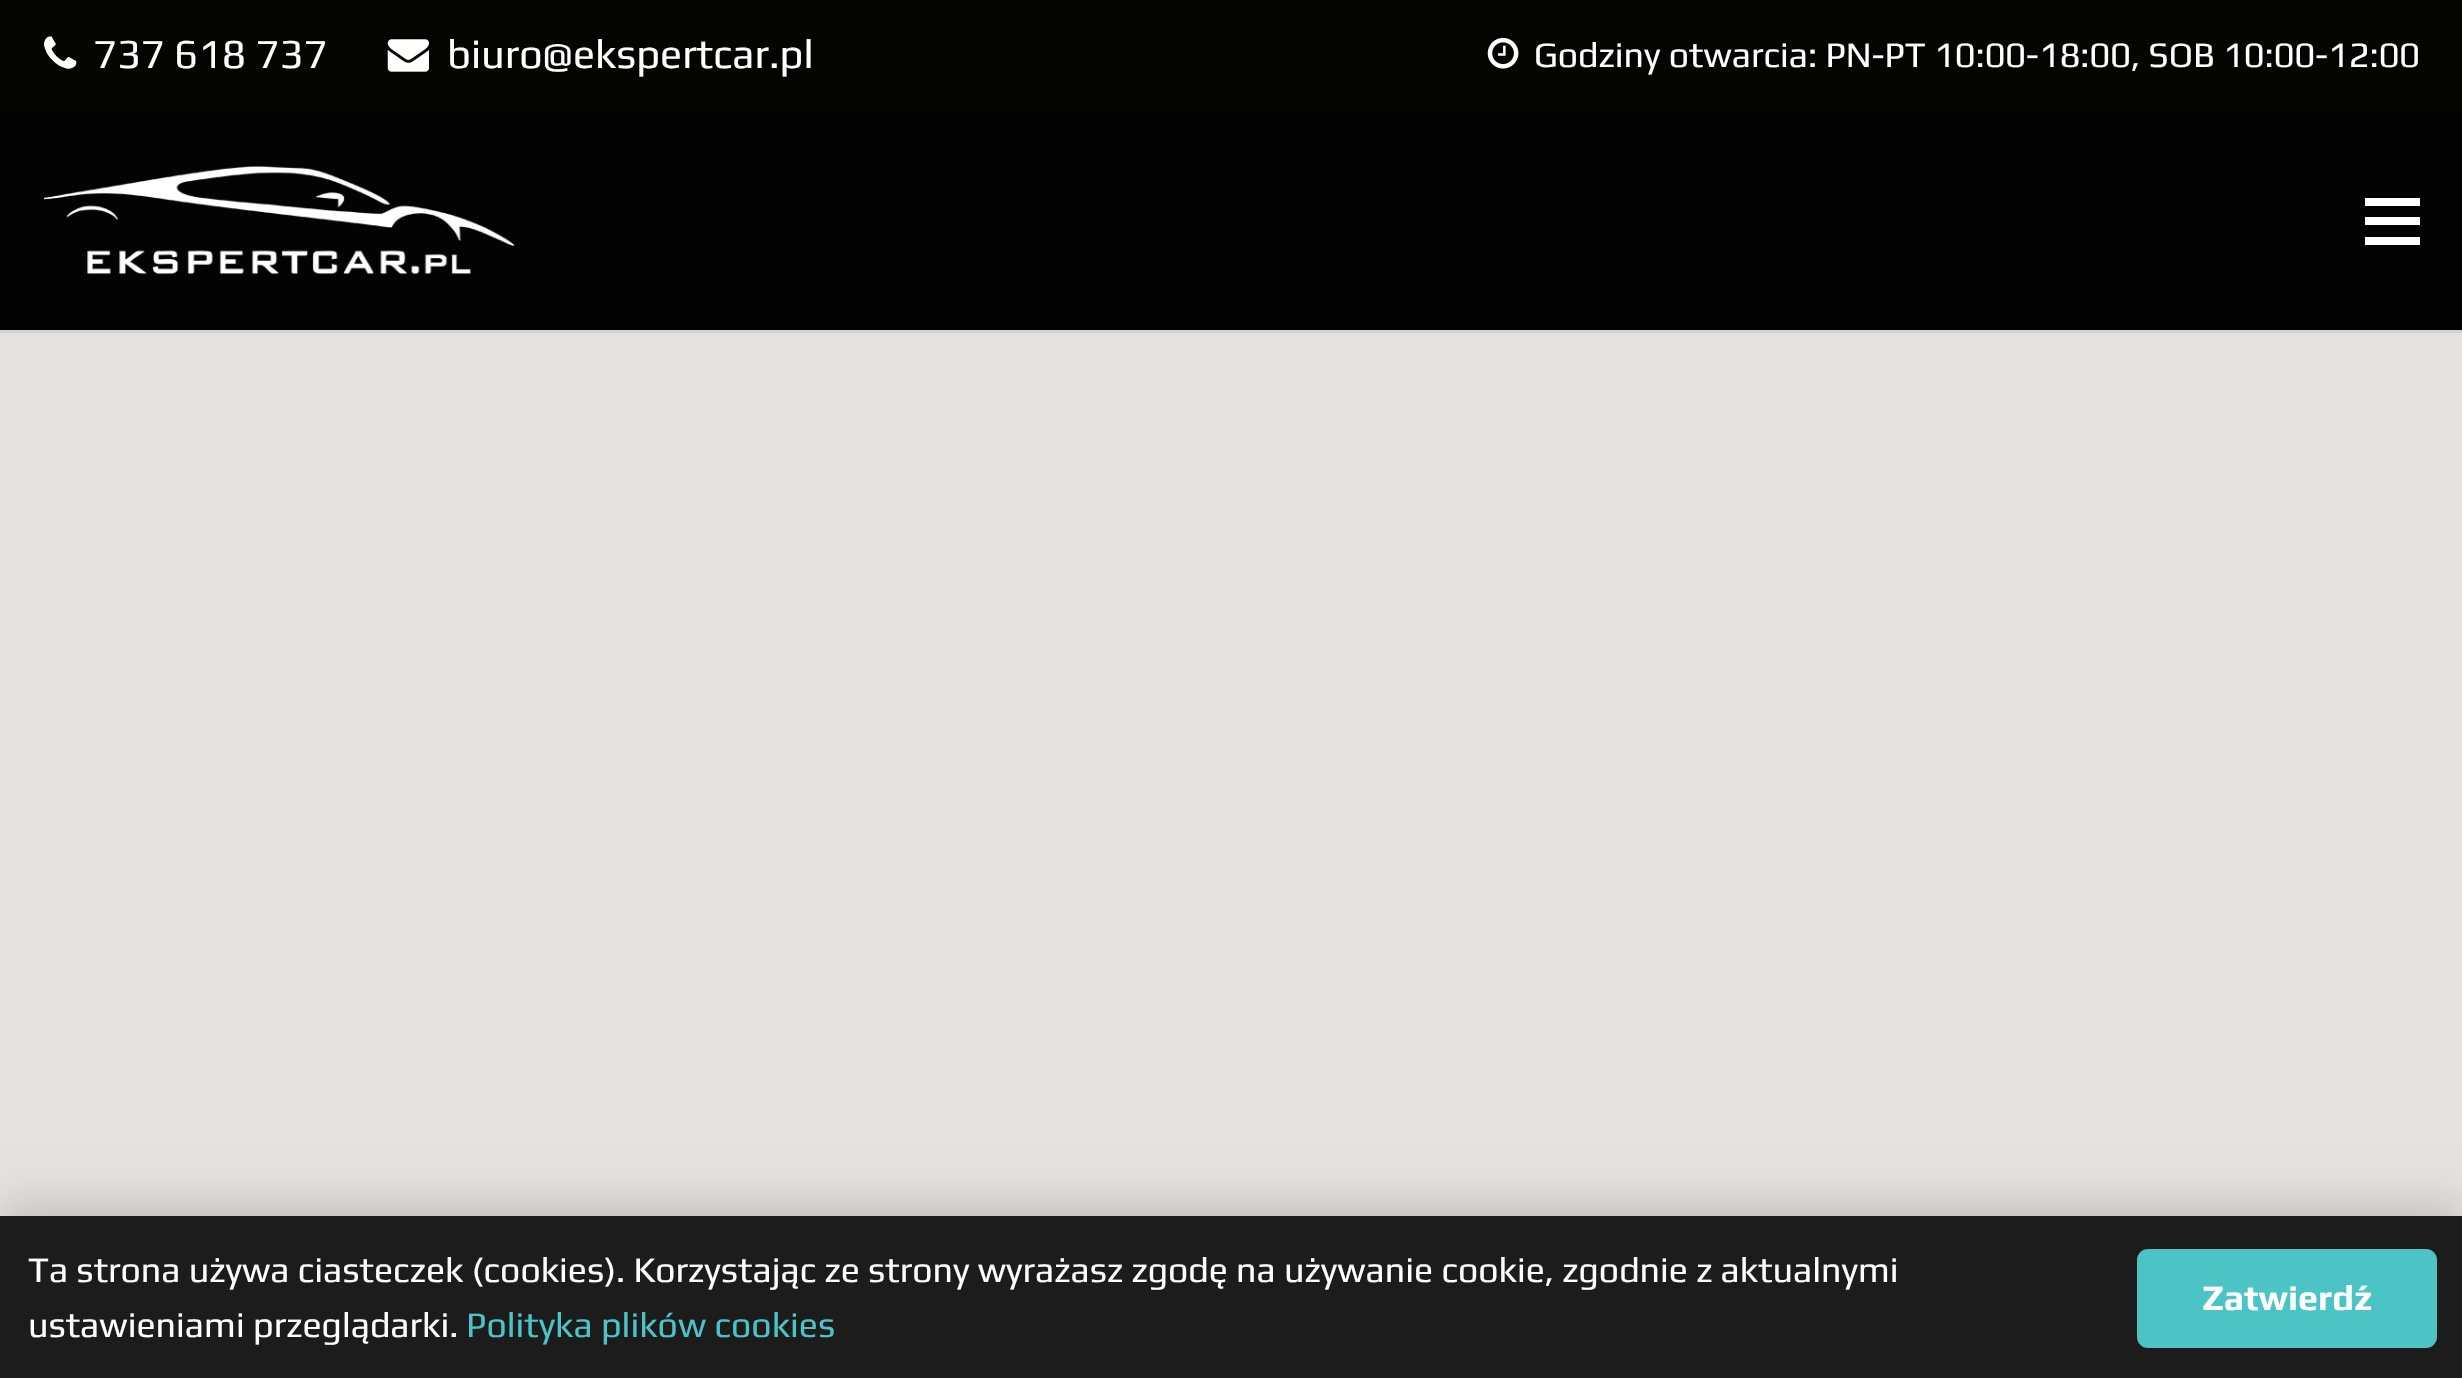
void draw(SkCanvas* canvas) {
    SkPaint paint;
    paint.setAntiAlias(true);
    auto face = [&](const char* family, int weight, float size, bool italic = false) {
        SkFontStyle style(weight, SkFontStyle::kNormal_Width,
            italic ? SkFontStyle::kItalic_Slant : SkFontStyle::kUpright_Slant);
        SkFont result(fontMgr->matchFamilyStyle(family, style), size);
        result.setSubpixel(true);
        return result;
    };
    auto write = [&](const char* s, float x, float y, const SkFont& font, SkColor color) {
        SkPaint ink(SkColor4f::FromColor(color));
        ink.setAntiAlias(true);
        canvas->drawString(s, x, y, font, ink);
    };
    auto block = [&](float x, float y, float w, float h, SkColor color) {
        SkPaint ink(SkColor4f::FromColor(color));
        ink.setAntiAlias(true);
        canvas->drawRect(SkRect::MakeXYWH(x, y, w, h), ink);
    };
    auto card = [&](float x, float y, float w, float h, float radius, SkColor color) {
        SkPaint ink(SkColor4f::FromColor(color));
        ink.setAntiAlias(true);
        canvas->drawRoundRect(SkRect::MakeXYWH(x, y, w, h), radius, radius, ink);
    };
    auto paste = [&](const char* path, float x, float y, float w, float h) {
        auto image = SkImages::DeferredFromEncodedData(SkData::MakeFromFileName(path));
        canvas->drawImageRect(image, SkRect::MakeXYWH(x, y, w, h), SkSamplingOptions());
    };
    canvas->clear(SkColorSetRGB(229, 227, 223));
    block(0, 0, 2462, 110, SkColorSetRGB(4, 5, 1));
    paste("pic1.png", 44, 36, 33, 33);
    auto kFont1 = face("Play", 400, 41.25f);
    write("737 618 737", 93, 68, kFont1, SK_ColorWHITE);
    paste("pic2.png", 387, 39, 42, 33);
    write("biuro@ekspertcar.pl", 447, 68, kFont1, SK_ColorWHITE);
    paste("pic3.png", 1487, 37, 32, 32);
    auto kFont2 = face("Play", 400, 35.75f);
    write("Godziny otwarcia: PN-PT 10:00-18:00, SOB 10:00-12:00", 1534, 67, kFont2, SK_ColorWHITE);
    block(0, 330, 2462, 3, SkColorSetRGB(211, 209, 205));
    block(0, 110, 2462, 220, SkColorSetRGB(3, 3, 3));
    paste("pic4.png", 44, 166, 471, 109);
    block(2365, 217, 55, 8, SK_ColorWHITE);
    block(2365, 198, 55, 8, SK_ColorWHITE);
    block(2365, 237, 55, 8, SK_ColorWHITE);
    paint.setColor(SkColorSetARGB(38, 0, 0, 0));
    paint.setMaskFilter(SkMaskFilter::MakeBlur(kNormal_SkBlurStyle, 20.5f));
    canvas->drawRect(SkRect::MakeXYWH(0, 1202, 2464, 165), paint);
    paint.setMaskFilter(nullptr);
    block(0, 1216, 2462, 162, SkColorSetRGB(28, 28, 28));
    write("Ta strona używa ciasteczek (cookies). Korzystając ze strony wyrażasz zgodę na używanie cookie, zgodnie z aktualnymi", 28, 1282, kFont2, SK_ColorWHITE);
    write("ustawieniami przeglądarki.", 28, 1337, kFont2, SK_ColorWHITE);
    write("Polityka plików cookies", 466, 1337, kFont2, SkColorSetRGB(76, 196, 197));
    card(2137, 1249, 300, 99, 11, SkColorSetRGB(76, 196, 197));
    auto kFont3 = face("Play", 700, 35.75f);
    write("Zatwierdź", 2202, 1310, kFont3, SK_ColorWHITE);
}
